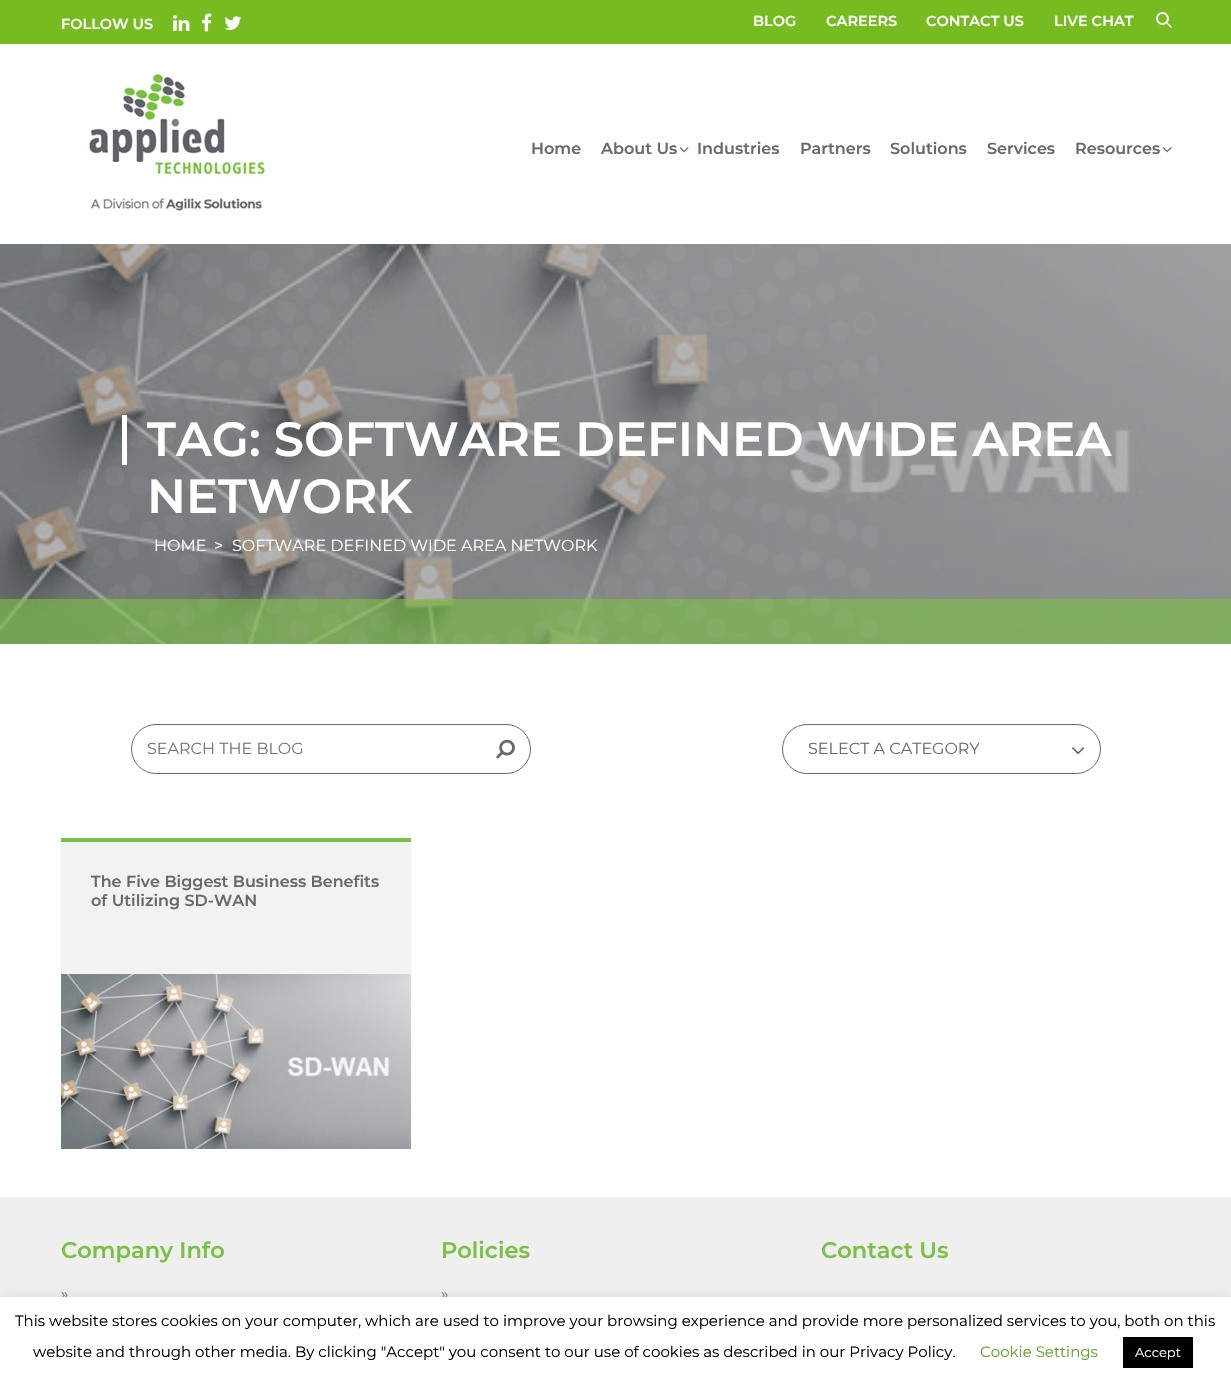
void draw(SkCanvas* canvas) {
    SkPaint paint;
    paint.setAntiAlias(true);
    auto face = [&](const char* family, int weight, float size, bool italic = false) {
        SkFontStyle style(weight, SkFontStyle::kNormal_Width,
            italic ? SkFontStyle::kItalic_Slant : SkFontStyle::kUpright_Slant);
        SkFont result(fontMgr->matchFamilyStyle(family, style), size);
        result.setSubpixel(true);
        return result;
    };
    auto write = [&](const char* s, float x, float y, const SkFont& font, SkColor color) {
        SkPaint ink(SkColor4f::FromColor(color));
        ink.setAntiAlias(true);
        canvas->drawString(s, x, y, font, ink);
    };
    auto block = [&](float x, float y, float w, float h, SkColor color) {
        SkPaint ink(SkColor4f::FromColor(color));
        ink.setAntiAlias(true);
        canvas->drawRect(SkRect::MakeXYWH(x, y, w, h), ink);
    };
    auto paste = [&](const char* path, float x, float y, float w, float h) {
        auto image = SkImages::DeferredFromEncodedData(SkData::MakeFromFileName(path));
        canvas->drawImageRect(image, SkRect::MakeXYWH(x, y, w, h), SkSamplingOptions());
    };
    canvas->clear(SK_ColorWHITE);
    block(0, 0, 1231, 44, SkColorSetRGB(118, 188, 33));
    auto kFont1 = face("Montserrat", 600, 14.5f);
    write("FOLLOW US", 61, 29, kFont1, SK_ColorWHITE);
    paste("pic1.png", 173, 15, 17, 16);
    paste("pic2.png", 202, 13, 10, 19);
    paste("pic3.png", 224, 16, 18, 14);
    write("BLOG", 753, 26, kFont1, SK_ColorWHITE);
    write("CAREERS", 826, 26, kFont1, SK_ColorWHITE);
    write("CONTACT US", 926, 26, kFont1, SK_ColorWHITE);
    write("LIVE CHAT", 1054, 26, kFont1, SK_ColorWHITE);
    paint.setStyle(SkPaint::kStroke_Style);
    paint.setStrokeWidth(2);
    paint.setColor(SK_ColorWHITE);
    canvas->drawCircle(1162.5f, 18.5f, 5.5f, paint);
    paint.setStyle(SkPaint::kFill_Style);
    canvas->drawPath(SkPathBuilder().moveTo(1167, 22).lineTo(1172, 27).lineTo(1171, 28).lineTo(1166, 23).close().detach(), paint);
    paste("pic4.png", 89, 74, 176, 137);
    auto kFont2 = face("Montserrat", 600, 16);
    write("Home", 531, 154, kFont2, SkColorSetRGB(105, 105, 105));
    write("About Us", 601, 154, kFont2, SkColorSetRGB(105, 105, 105));
    paste("pic5.png", 679, 147, 10, 6);
    write("Industries", 697, 154, kFont2, SkColorSetRGB(105, 105, 105));
    write("Partners", 800, 154, kFont2, SkColorSetRGB(105, 105, 105));
    write("Solutions", 890, 154, kFont2, SkColorSetRGB(105, 105, 105));
    write("Services", 987, 154, kFont2, SkColorSetRGB(105, 105, 105));
    write("Resources", 1075, 154, kFont2, SkColorSetRGB(105, 105, 105));
    paste("pic5.png", 1162, 147, 10, 6);
    paste("pic6.png", 0, 244, 1231, 400);
    block(0, 599, 1231, 45, SkColorSetARGB(153, 122, 193, 67));
    paste("pic7.png", 42, 244, 836, 400);
    block(122, 415, 5, 50, SK_ColorWHITE);
    auto kFont3 = face("Montserrat", 600, 48);
    write("TAG: SOFTWARE DEFINED WIDE AREA", 147, 456, kFont3, SK_ColorWHITE);
    write("NETWORK", 147, 513, kFont3, SK_ColorWHITE);
    auto kFont4 = face("Montserrat", 400, 16);
    write("HOME", 154, 551, kFont4, SK_ColorWHITE);
    write(">", 214, 551, kFont4, SK_ColorWHITE);
    write("SOFTWARE DEFINED WIDE AREA NETWORK", 232, 551, kFont4, SK_ColorWHITE);
    paint.setStyle(SkPaint::kStroke_Style);
    paint.setStrokeWidth(1);
    paint.setColor(SkColorSetRGB(105, 105, 105));
    canvas->drawRoundRect(SkRect::MakeXYWH(131.5f, 724.5f, 399, 49), 24.5f, 24.5f, paint);
    write("SEARCH THE BLOG", 147, 754, kFont4, SkColorSetRGB(117, 117, 117));
    paste("pic8.png", 496, 739, 19, 20);
    canvas->drawRoundRect(SkRect::MakeXYWH(782.5f, 724.5f, 318, 49), 24.5f, 24.5f, paint);
    write("SELECT A CATEGORY", 808, 754, kFont4, SkColorSetRGB(105, 105, 105));
    paste("pic9.png", 1072, 747, 13, 8);
    block(61, 838, 350, 4, SkColorSetRGB(122, 193, 67));
    block(61, 842, 350, 132, SkColorSetRGB(242, 242, 242));
    write("The Five Biggest Business Benefits", 91, 887, kFont2, SkColorSetRGB(105, 105, 105));
    write("of Utilizing SD-WAN", 91, 906, kFont2, SkColorSetRGB(105, 105, 105));
    paste("pic10.png", 61, 974, 350, 175);
    block(0, 1197, 1231, 100, SkColorSetRGB(239, 239, 239));
    auto kFont5 = face("Montserrat", 600, 22.5f);
    write("Company Info", 61, 1258, kFont5, SkColorSetRGB(122, 193, 67));
    auto kFont6 = face("Montserrat", 500, 14.5f);
    write("»", 61, 1299, kFont6, SkColorSetRGB(128, 130, 133));
    write("Policies", 441, 1258, kFont5, SkColorSetRGB(122, 193, 67));
    write("»", 441, 1299, kFont6, SkColorSetRGB(128, 130, 133));
    write("Contact Us", 821, 1258, kFont5, SkColorSetRGB(122, 193, 67));
    paint.setStyle(SkPaint::kFill_Style);
    paint.setColor(SkColorSetARGB(77, 172, 171, 171));
    paint.setMaskFilter(SkMaskFilter::MakeBlur(kNormal_SkBlurStyle, 5));
    canvas->drawRect(SkRect::MakeXYWH(0, 1296, 1231, 88), paint);
    paint.setMaskFilter(nullptr);
    block(0, 1297, 1231, 88, SK_ColorWHITE);
    auto kFont7 = face("Montserrat", 400, 15);
    write("This website stores cookies on your computer, which are used to improve your browsing experience and provide more personalized services to you, both on this", 15, 1326, kFont7, SK_ColorBLACK);
    write("website and through other media. By clicking \"Accept\" you consent to our use of cookies as described in our Privacy Policy.", 33, 1357, kFont7, SK_ColorBLACK);
    write("Cookie Settings", 980, 1357, kFont7, SkColorSetRGB(98, 163, 41));
    block(1123, 1337, 70, 31, SK_ColorBLACK);
    auto kFont8 = face("Montserrat", 400, 13);
    write("Accept", 1135, 1357, kFont8, SK_ColorWHITE);
}
